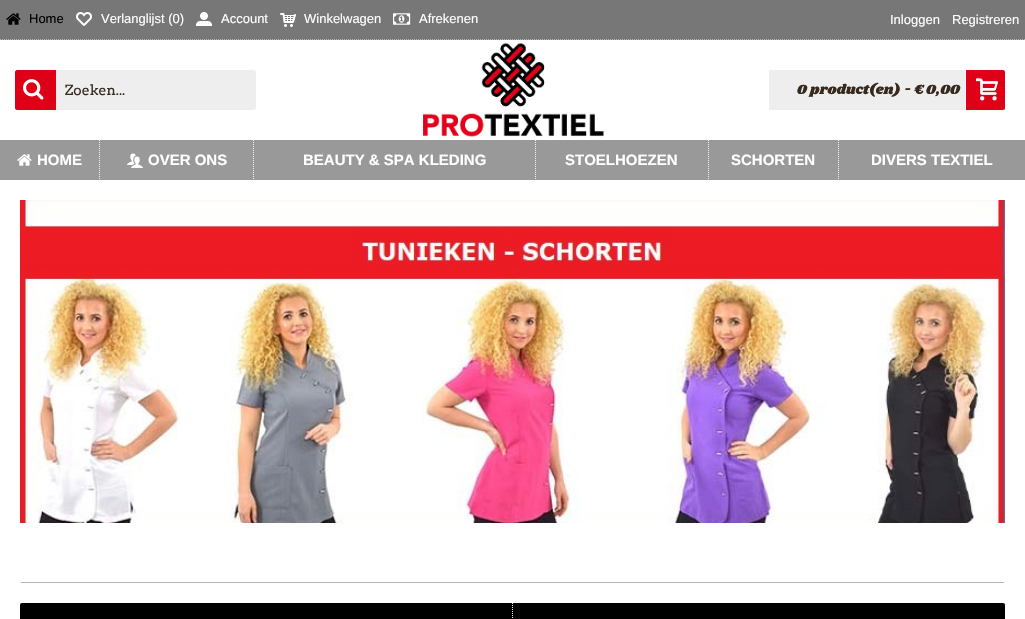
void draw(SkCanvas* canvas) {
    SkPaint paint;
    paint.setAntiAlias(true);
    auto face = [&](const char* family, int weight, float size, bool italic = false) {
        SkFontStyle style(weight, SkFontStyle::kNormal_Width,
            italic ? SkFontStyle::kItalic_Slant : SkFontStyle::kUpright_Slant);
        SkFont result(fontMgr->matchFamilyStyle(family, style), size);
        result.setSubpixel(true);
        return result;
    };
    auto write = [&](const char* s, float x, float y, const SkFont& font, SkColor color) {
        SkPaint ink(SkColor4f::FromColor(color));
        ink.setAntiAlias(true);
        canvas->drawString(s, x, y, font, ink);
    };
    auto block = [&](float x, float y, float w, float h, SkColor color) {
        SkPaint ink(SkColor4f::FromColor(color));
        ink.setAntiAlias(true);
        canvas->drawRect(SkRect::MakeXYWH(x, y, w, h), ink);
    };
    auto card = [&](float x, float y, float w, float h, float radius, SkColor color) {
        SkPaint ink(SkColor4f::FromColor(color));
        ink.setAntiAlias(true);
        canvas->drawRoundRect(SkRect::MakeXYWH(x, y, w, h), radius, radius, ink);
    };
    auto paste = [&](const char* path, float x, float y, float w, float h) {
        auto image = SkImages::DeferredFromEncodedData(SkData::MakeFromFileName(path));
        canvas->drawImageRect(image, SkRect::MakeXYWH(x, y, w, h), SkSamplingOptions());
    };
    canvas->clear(SK_ColorWHITE);
    block(0, 0, 1025, 40, SkColorSetRGB(119, 119, 119));
    paint.setStyle(SkPaint::kStroke_Style);
    paint.setStrokeWidth(1);
    paint.setColor(SkColorSetRGB(169, 184, 192));
    paint.setPathEffect(SkDashPathEffect::Make({{1, 1}}, 0));
    canvas->drawPath(SkPathBuilder().moveTo(0, 39.5f).lineTo(1025, 39.5f).detach(), paint);
    paint.setPathEffect(nullptr);
    paste("pic1.png", 6, 13, 15, 12);
    auto kFont1 = face("Liberation Sans", 400, 13);
    write("Home", 29, 23, kFont1, SK_ColorBLACK);
    paste("pic2.png", 76, 12, 16, 14);
    write("Verlanglijst (0)", 101, 23, kFont1, SK_ColorWHITE);
    paste("pic3.png", 196, 12, 16, 14);
    write("Account", 221, 23, kFont1, SK_ColorWHITE);
    paste("pic4.png", 280, 13, 16, 14);
    write("Winkelwagen", 304, 23, kFont1, SK_ColorWHITE);
    paste("pic5.png", 393, 13, 18, 12);
    write("Afrekenen", 419, 23, kFont1, SK_ColorWHITE);
    write("Inloggen", 890, 24, kFont1, SK_ColorWHITE);
    write("Registreren", 952, 24, kFont1, SK_ColorWHITE);
    card(15, 70, 241, 40, 3, SkColorSetRGB(238, 238, 238));
    paint.setStyle(SkPaint::kFill_Style);
    paint.setColor(SkColorSetRGB(221, 0, 23));
    canvas->drawPath(SkPathBuilder().moveTo(17, 70).lineTo(56, 70).lineTo(56, 110).lineTo(17, 110).cubicTo(16, 110, 15, 109, 15, 108).lineTo(15, 72).cubicTo(15, 71, 16, 70, 17, 70).close().detach(), paint);
    paste("pic6.png", 23, 79, 21, 21);
    auto kFont2 = face("Arvo", 400, 14);
    write("Zoeken...", 65, 95, kFont2, SkColorSetRGB(55, 41, 30));
    paste("pic7.png", 423, 43, 181, 94);
    block(769, 70, 236, 40, SkColorSetRGB(238, 238, 238));
    auto kFont3 = face("Shrikhand", 400, 14);
    write("0 product(en) - € 0,00", 797, 94, kFont3, SkColorSetRGB(55, 41, 30));
    canvas->drawPath(SkPathBuilder().moveTo(966, 70).lineTo(1003, 70).cubicTo(1004, 70, 1005, 71, 1005, 72).lineTo(1005, 108).cubicTo(1005, 109, 1004, 110, 1003, 110).lineTo(966, 110).close().detach(), paint);
    block(965, 70, 1, 40, SK_ColorWHITE);
    paste("pic8.png", 976, 78, 22, 23);
    block(0, 140, 1025, 40, SkColorSetRGB(153, 153, 153));
    paste("pic9.png", 17, 154, 15, 12);
    auto kFont4 = face("Liberation Sans", 700, 15);
    write("HOME", 37, 165, kFont4, SK_ColorWHITE);
    paint.setStyle(SkPaint::kStroke_Style);
    paint.setColor(SkColorSetRGB(244, 244, 244));
    paint.setPathEffect(SkDashPathEffect::Make({{1, 1}}, 0));
    canvas->drawPath(SkPathBuilder().moveTo(99.5f, 140).lineTo(99.5f, 180).detach(), paint);
    paint.setPathEffect(nullptr);
    paste("pic10.png", 127, 153, 16, 15);
    write("OVER ONS", 148, 165, kFont4, SK_ColorWHITE);
    paint.setPathEffect(SkDashPathEffect::Make({{1, 1}}, 0));
    canvas->drawPath(SkPathBuilder().moveTo(253.5f, 140).lineTo(253.5f, 180).detach(), paint);
    paint.setPathEffect(nullptr);
    write("BEAUTY & SPA KLEDING", 303, 165, kFont4, SK_ColorWHITE);
    paint.setPathEffect(SkDashPathEffect::Make({{1, 1}}, 0));
    canvas->drawPath(SkPathBuilder().moveTo(535.5f, 140).lineTo(535.5f, 180).detach(), paint);
    paint.setPathEffect(nullptr);
    write("STOELHOEZEN", 565, 165, kFont4, SK_ColorWHITE);
    paint.setPathEffect(SkDashPathEffect::Make({{1, 1}}, 0));
    canvas->drawPath(SkPathBuilder().moveTo(708.5f, 140).lineTo(708.5f, 180).detach(), paint);
    paint.setPathEffect(nullptr);
    write("SCHORTEN", 731, 165, kFont4, SK_ColorWHITE);
    paint.setPathEffect(SkDashPathEffect::Make({{1, 1}}, 0));
    canvas->drawPath(SkPathBuilder().moveTo(838.5f, 140).lineTo(838.5f, 180).detach(), paint);
    paint.setPathEffect(nullptr);
    write("DIVERS TEXTIEL", 871, 165, kFont4, SK_ColorWHITE);
    paste("pic11.png", 20, 200, 985, 323);
    block(21, 582, 983, 1, SkColorSetRGB(169, 184, 192));
    card(20, 603, 985, 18, 2, SK_ColorBLACK);
    paint.setColor(SkColorSetRGB(238, 238, 238));
    paint.setPathEffect(SkDashPathEffect::Make({{1, 1}}, 0));
    canvas->drawPath(SkPathBuilder().moveTo(512.5f, 603).lineTo(512.5f, 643).detach(), paint);
    paint.setPathEffect(nullptr);
}
